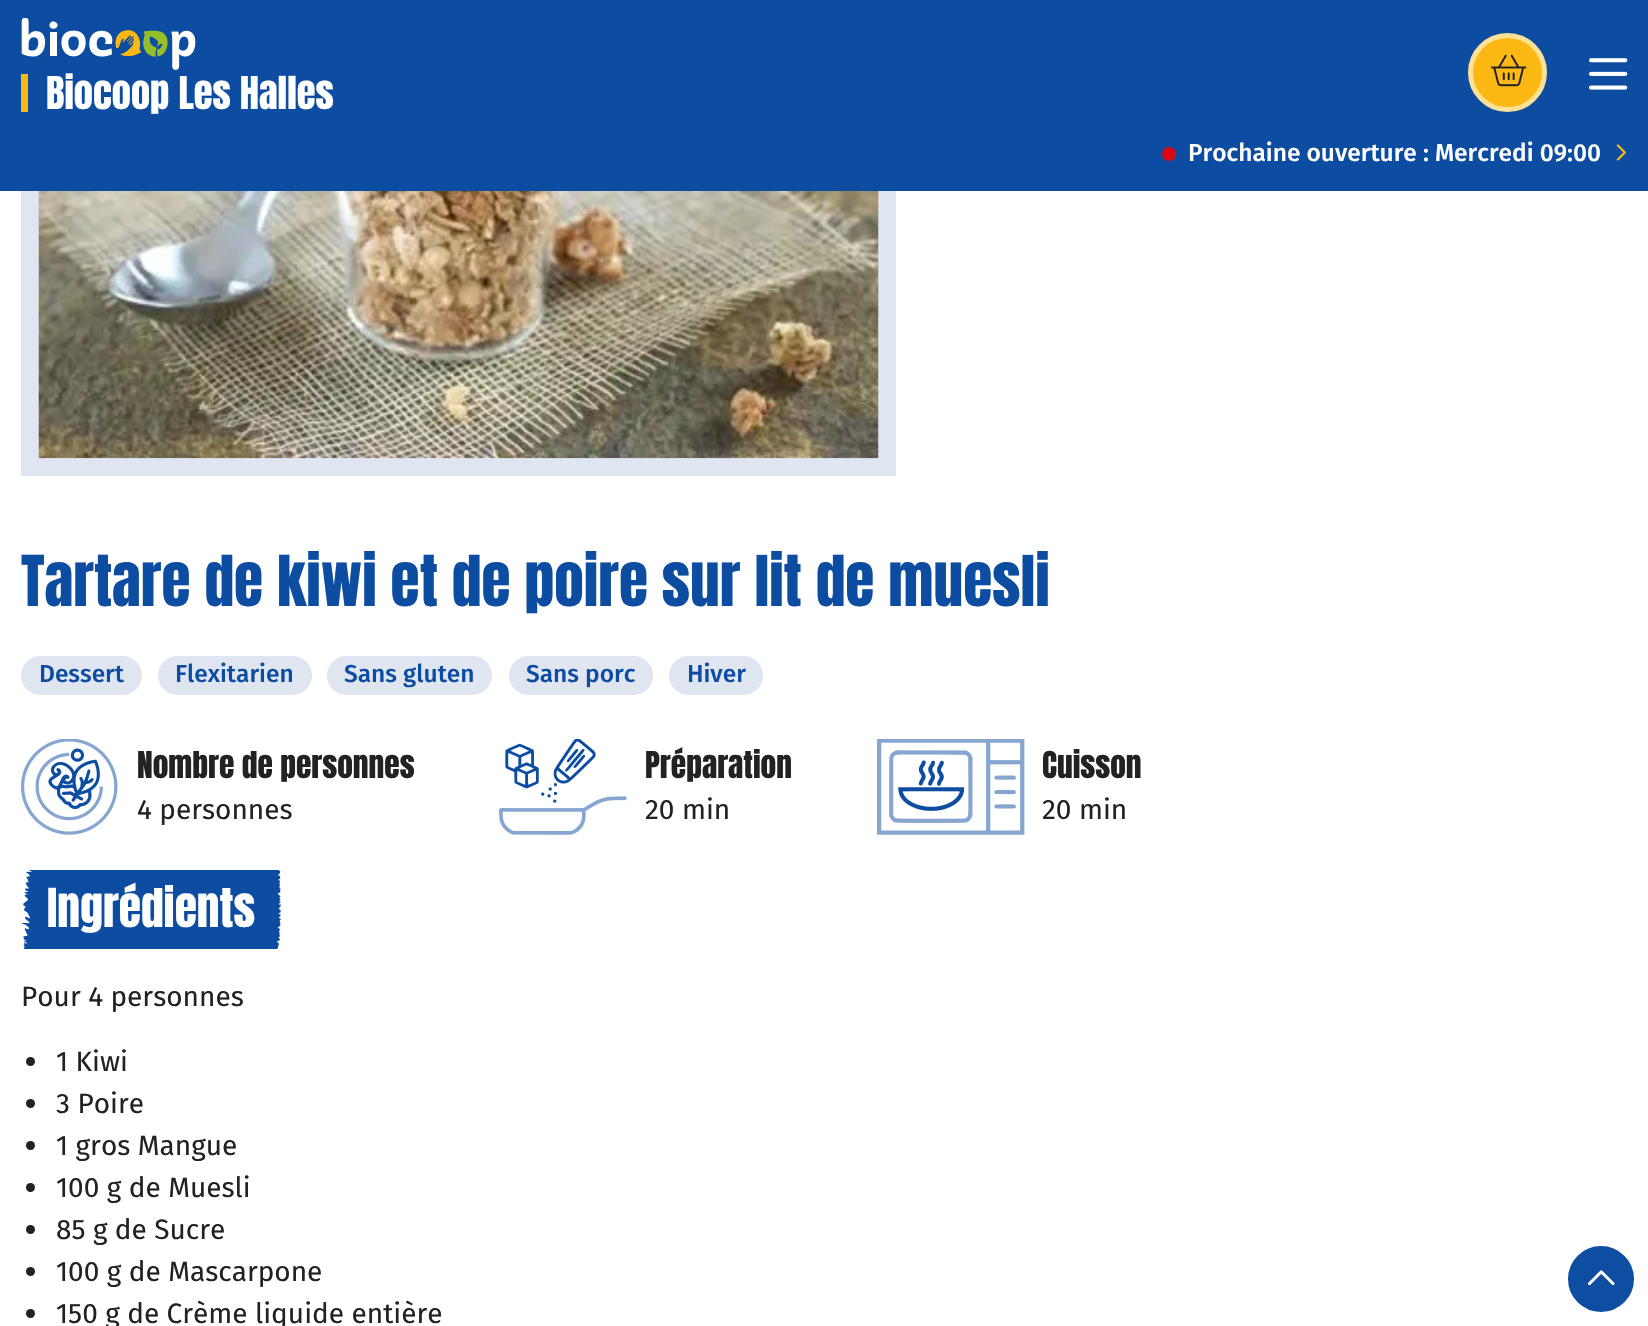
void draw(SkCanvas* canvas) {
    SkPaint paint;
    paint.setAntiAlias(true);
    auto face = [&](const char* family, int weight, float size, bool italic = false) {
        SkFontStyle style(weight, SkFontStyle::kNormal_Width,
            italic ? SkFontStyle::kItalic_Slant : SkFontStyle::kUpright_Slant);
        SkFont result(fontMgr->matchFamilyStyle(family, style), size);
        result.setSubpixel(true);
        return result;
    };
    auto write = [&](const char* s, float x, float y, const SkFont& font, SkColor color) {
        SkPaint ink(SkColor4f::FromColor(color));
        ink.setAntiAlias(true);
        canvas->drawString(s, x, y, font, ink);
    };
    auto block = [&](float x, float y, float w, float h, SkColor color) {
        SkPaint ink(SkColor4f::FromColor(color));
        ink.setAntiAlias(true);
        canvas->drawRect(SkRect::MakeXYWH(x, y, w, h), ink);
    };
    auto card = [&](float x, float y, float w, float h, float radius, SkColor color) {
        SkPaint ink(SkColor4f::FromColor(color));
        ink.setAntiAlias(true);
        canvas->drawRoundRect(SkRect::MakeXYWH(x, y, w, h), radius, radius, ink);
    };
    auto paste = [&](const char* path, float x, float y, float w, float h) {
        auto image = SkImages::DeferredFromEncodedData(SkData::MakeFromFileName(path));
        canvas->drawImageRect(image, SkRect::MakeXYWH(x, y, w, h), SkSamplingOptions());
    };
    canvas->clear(SK_ColorWHITE);
    paint.setStyle(SkPaint::kStroke_Style);
    paint.setStrokeWidth(18);
    paint.setColor(SkColorSetRGB(223, 229, 241));
    canvas->drawRect(SkRect::MakeXYWH(30, -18, 857, 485), paint);
    block(0, 0, 1648, 191, SkColorSetRGB(12, 77, 162));
    paste("pic1.png", 21, 18, 175, 52);
    block(21, 74, 7, 38, SkColorSetRGB(253, 184, 19));
    auto kFont1 = face("Anton", 400, 38.5f);
    write("Biocoop Les Halles", 46, 109, kFont1, SK_ColorWHITE);
    paint.setStyle(SkPaint::kFill_Style);
    paint.setColor(SkColorSetRGB(253, 184, 19));
    canvas->drawCircle(1507.5f, 72.5f, 37, paint);
    paint.setStyle(SkPaint::kStroke_Style);
    paint.setStrokeWidth(5);
    paint.setColor(SkColorSetRGB(252, 225, 151));
    canvas->drawCircle(1507.5f, 72.5f, 37, paint);
    paste("pic2.png", 1491, 54, 36, 33);
    paste("pic3.png", 1589, 58, 39, 32);
    paint.setStyle(SkPaint::kFill_Style);
    paint.setColor(SkColorSetRGB(218, 8, 18));
    canvas->drawCircle(1169, 154, 7, paint);
    auto kFont2 = face("Fira Sans", 500, 24.5f);
    write("Prochaine ouverture : Mercredi 09:00", 1188, 161, kFont2, SK_ColorWHITE);
    paste("pic4.png", 1616, 144, 10, 17);
    paint.setColor(SkColorSetRGB(13, 78, 162));
    canvas->drawCircle(1601, 1279, 34, paint);
    paint.setStyle(SkPaint::kStroke_Style);
    paint.setStrokeWidth(2);
    paint.setColor(SK_ColorWHITE);
    canvas->drawCircle(1601, 1279, 34, paint);
    paste("pic5.png", 1588, 1270, 27, 16);
    paste("pic6.png", 38, 191, 841, 268);
    auto kFont3 = face("Anton", 400, 59.5f);
    write("Tartare de kiwi et de poire sur lit de muesli", 21, 606, kFont3, SkColorSetRGB(12, 77, 162));
    card(21, 656, 121, 39, 19.5f, SkColorSetRGB(223, 229, 241));
    write("Dessert", 39, 682, kFont2, SkColorSetRGB(12, 77, 162));
    card(158, 656, 154, 39, 19.5f, SkColorSetRGB(223, 229, 241));
    write("Flexitarien", 175, 682, kFont2, SkColorSetRGB(12, 77, 162));
    card(327, 656, 165, 39, 19.5f, SkColorSetRGB(223, 229, 241));
    write("Sans gluten", 344, 682, kFont2, SkColorSetRGB(12, 77, 162));
    card(509, 656, 144, 39, 19.5f, SkColorSetRGB(223, 229, 241));
    write("Sans porc", 526, 682, kFont2, SkColorSetRGB(12, 77, 162));
    card(669, 656, 94, 39, 19.5f, SkColorSetRGB(223, 229, 241));
    write("Hiver", 687, 682, kFont2, SkColorSetRGB(12, 77, 162));
    paste("pic7.png", 21, 739, 97, 96);
    auto kFont4 = face("Anton", 400, 31.5f);
    write("Nombre de personnes", 137, 778, kFont4, SkColorSetRGB(34, 34, 34));
    auto kFont5 = face("Fira Sans", 400, 28);
    write("4 personnes", 137, 819, kFont5, SkColorSetRGB(34, 34, 34));
    paste("pic8.png", 499, 739, 128, 96);
    write("Préparation", 645, 778, kFont4, SkColorSetRGB(34, 34, 34));
    write("20 min", 645, 819, kFont5, SkColorSetRGB(34, 34, 34));
    paste("pic9.png", 877, 739, 148, 96);
    write("Cuisson", 1042, 778, kFont4, SkColorSetRGB(34, 34, 34));
    write("20 min", 1042, 819, kFont5, SkColorSetRGB(34, 34, 34));
    paste("pic10.png", 21, 870, 260, 79);
    auto kFont6 = face("Anton", 400, 45.5f);
    write("Ingrédients", 47, 927, kFont6, SK_ColorWHITE);
    write("Pour 4 personnes", 21, 1006, kFont5, SkColorSetRGB(34, 34, 34));
    paint.setStyle(SkPaint::kFill_Style);
    paint.setColor(SkColorSetRGB(34, 34, 34));
    canvas->drawCircle(30.5f, 1061.5f, 4.5f, paint);
    write("1 Kiwi", 56, 1071, kFont5, SkColorSetRGB(34, 34, 34));
    canvas->drawCircle(30.5f, 1103.5f, 4.5f, paint);
    write("3 Poire", 56, 1113, kFont5, SkColorSetRGB(34, 34, 34));
    canvas->drawCircle(30.5f, 1145.5f, 4.5f, paint);
    write("1 gros Mangue", 56, 1155, kFont5, SkColorSetRGB(34, 34, 34));
    canvas->drawCircle(30.5f, 1187.5f, 4.5f, paint);
    write("100 g de Muesli", 56, 1197, kFont5, SkColorSetRGB(34, 34, 34));
    canvas->drawCircle(30.5f, 1229.5f, 4.5f, paint);
    write("85 g de Sucre", 56, 1239, kFont5, SkColorSetRGB(34, 34, 34));
    canvas->drawCircle(30.5f, 1271.5f, 4.5f, paint);
    write("100 g de Mascarpone", 56, 1281, kFont5, SkColorSetRGB(34, 34, 34));
    canvas->drawCircle(30.5f, 1313.5f, 4.5f, paint);
    write("150 g de Crème liquide entière", 56, 1323, kFont5, SkColorSetRGB(34, 34, 34));
}
